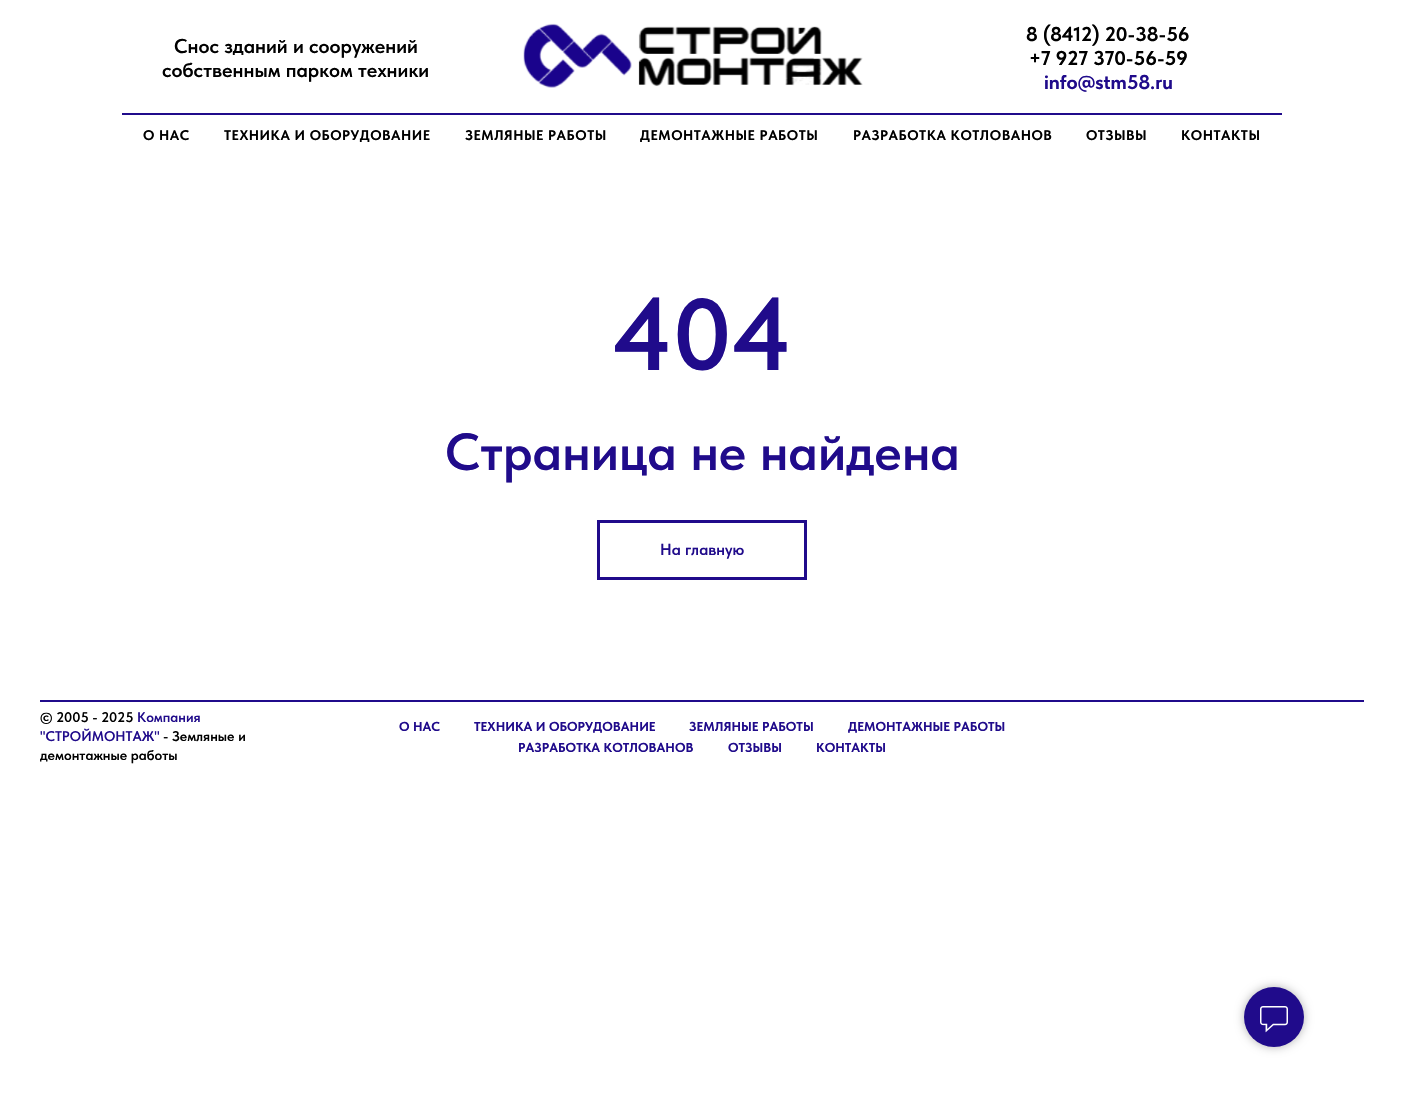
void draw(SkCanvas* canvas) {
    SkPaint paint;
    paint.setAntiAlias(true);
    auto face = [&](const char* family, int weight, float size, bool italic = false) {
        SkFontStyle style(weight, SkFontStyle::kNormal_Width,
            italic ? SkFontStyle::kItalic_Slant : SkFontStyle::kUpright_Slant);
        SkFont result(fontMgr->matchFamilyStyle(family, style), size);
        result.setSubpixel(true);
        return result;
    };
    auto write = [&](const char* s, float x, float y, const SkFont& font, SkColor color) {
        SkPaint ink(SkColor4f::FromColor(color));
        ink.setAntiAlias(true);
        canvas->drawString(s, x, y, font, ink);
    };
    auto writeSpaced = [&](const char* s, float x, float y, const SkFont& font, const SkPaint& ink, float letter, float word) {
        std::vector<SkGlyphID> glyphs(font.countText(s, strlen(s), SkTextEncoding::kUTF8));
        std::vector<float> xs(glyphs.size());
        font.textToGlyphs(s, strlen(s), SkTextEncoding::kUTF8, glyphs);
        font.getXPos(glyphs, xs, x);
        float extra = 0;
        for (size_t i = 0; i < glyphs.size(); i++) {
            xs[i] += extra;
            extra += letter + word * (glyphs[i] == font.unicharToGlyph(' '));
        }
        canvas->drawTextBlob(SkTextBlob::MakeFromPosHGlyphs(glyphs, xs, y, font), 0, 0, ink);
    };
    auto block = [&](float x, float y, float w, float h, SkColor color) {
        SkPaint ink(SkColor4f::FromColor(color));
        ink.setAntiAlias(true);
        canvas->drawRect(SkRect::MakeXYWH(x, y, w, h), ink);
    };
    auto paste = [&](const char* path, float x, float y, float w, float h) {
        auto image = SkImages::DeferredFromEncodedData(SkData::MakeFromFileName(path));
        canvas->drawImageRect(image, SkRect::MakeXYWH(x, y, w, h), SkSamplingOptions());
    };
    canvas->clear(SK_ColorWHITE);
    paste("pic1.png", 523, 23, 340, 65);
    auto kFont1 = face("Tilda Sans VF", 600, 20);
    write("Снос зданий и сооружений", 174, 53, kFont1, SK_ColorBLACK);
    write("собственным парком техники", 162, 77, kFont1, SK_ColorBLACK);
    auto kFont2 = face("Tilda Sans VF", 700, 20);
    write("8 (8412) 20-38-56", 1026, 41, kFont2, SK_ColorBLACK);
    write("+7 927 370-56-59", 1029, 65, kFont2, SK_ColorBLACK);
    write("info@stm58.ru", 1044, 89, kFont2, SkColorSetRGB(32, 11, 139));
    block(122, 113, 1160, 2, SkColorSetRGB(32, 11, 139));
    auto kFont3 = face("Tilda Sans VF", 700, 14);
    paint.setColor(SK_ColorBLACK);
    writeSpaced("О НАС", 143, 140, kFont3, paint, 0.5f, 0);
    writeSpaced("ТЕХНИКА И ОБОРУДОВАНИЕ", 224, 140, kFont3, paint, 0.5f, 0);
    writeSpaced("ЗЕМЛЯНЫЕ РАБОТЫ", 465, 140, kFont3, paint, 0.5f, 0);
    writeSpaced("ДЕМОНТАЖНЫЕ РАБОТЫ", 640, 140, kFont3, paint, 0.5f, 0);
    writeSpaced("РАЗРАБОТКА КОТЛОВАНОВ", 853, 140, kFont3, paint, 0.5f, 0);
    writeSpaced("ОТЗЫВЫ", 1086, 140, kFont3, paint, 0.5f, 0);
    writeSpaced("КОНТАКТЫ", 1181, 140, kFont3, paint, 0.5f, 0);
    auto kFont4 = face("Tilda Sans VF", 600, 102);
    write("404", 613, 370, kFont4, SkColorSetRGB(32, 11, 139));
    auto kFont5 = face("Tilda Sans VF", 600, 52);
    write("Страница не найдена", 445, 470, kFont5, SkColorSetRGB(32, 11, 139));
    paint.setStyle(SkPaint::kStroke_Style);
    paint.setStrokeWidth(3);
    paint.setColor(SkColorSetRGB(32, 11, 139));
    canvas->drawRect(SkRect::MakeXYWH(598.5f, 521.5f, 207, 57), paint);
    auto kFont6 = face("Tilda Sans VF", 600, 16);
    write("На главную", 660, 555, kFont6, SkColorSetRGB(32, 11, 139));
    block(40, 700, 1324, 2, SkColorSetRGB(32, 11, 139));
    auto kFont7 = face("Tilda Sans VF", 600, 14);
    write("© 2005 - 2025", 40, 722, kFont7, SK_ColorBLACK);
    write("Компания", 137, 722, kFont7, SkColorSetRGB(32, 11, 139));
    write("\"СТРОЙМОНТАЖ\"", 40, 741, kFont7, SkColorSetRGB(32, 11, 139));
    write("- Земляные и", 163, 741, kFont7, SK_ColorBLACK);
    write("демонтажные работы", 40, 760, kFont7, SK_ColorBLACK);
    auto kFont8 = face("Tilda Sans VF", 700, 13);
    write("О НАС", 399, 731, kFont8, SkColorSetRGB(32, 11, 139));
    write("ТЕХНИКА И ОБОРУДОВАНИЕ", 474, 731, kFont8, SkColorSetRGB(32, 11, 139));
    write("ЗЕМЛЯНЫЕ РАБОТЫ", 689, 731, kFont8, SkColorSetRGB(32, 11, 139));
    write("ДЕМОНТАЖНЫЕ РАБОТЫ", 848, 731, kFont8, SkColorSetRGB(32, 11, 139));
    write("РАЗРАБОТКА КОТЛОВАНОВ", 518, 752, kFont8, SkColorSetRGB(32, 11, 139));
    write("ОТЗЫВЫ", 728, 752, kFont8, SkColorSetRGB(32, 11, 139));
    write("КОНТАКТЫ", 816, 752, kFont8, SkColorSetRGB(32, 11, 139));
    paint.setStyle(SkPaint::kFill_Style);
    paint.setColor(SkColorSetARGB(77, 0, 0, 0));
    paint.setMaskFilter(SkMaskFilter::MakeBlur(kNormal_SkBlurStyle, 5));
    canvas->drawRoundRect(SkRect::MakeXYWH(1244, 987, 60, 60), 30, 30, paint);
    paint.setMaskFilter(nullptr);
    paint.setColor(SkColorSetRGB(32, 11, 139));
    canvas->drawCircle(1274, 1017, 30, paint);
    paste("pic2.png", 1260, 1006, 28, 27);
}
